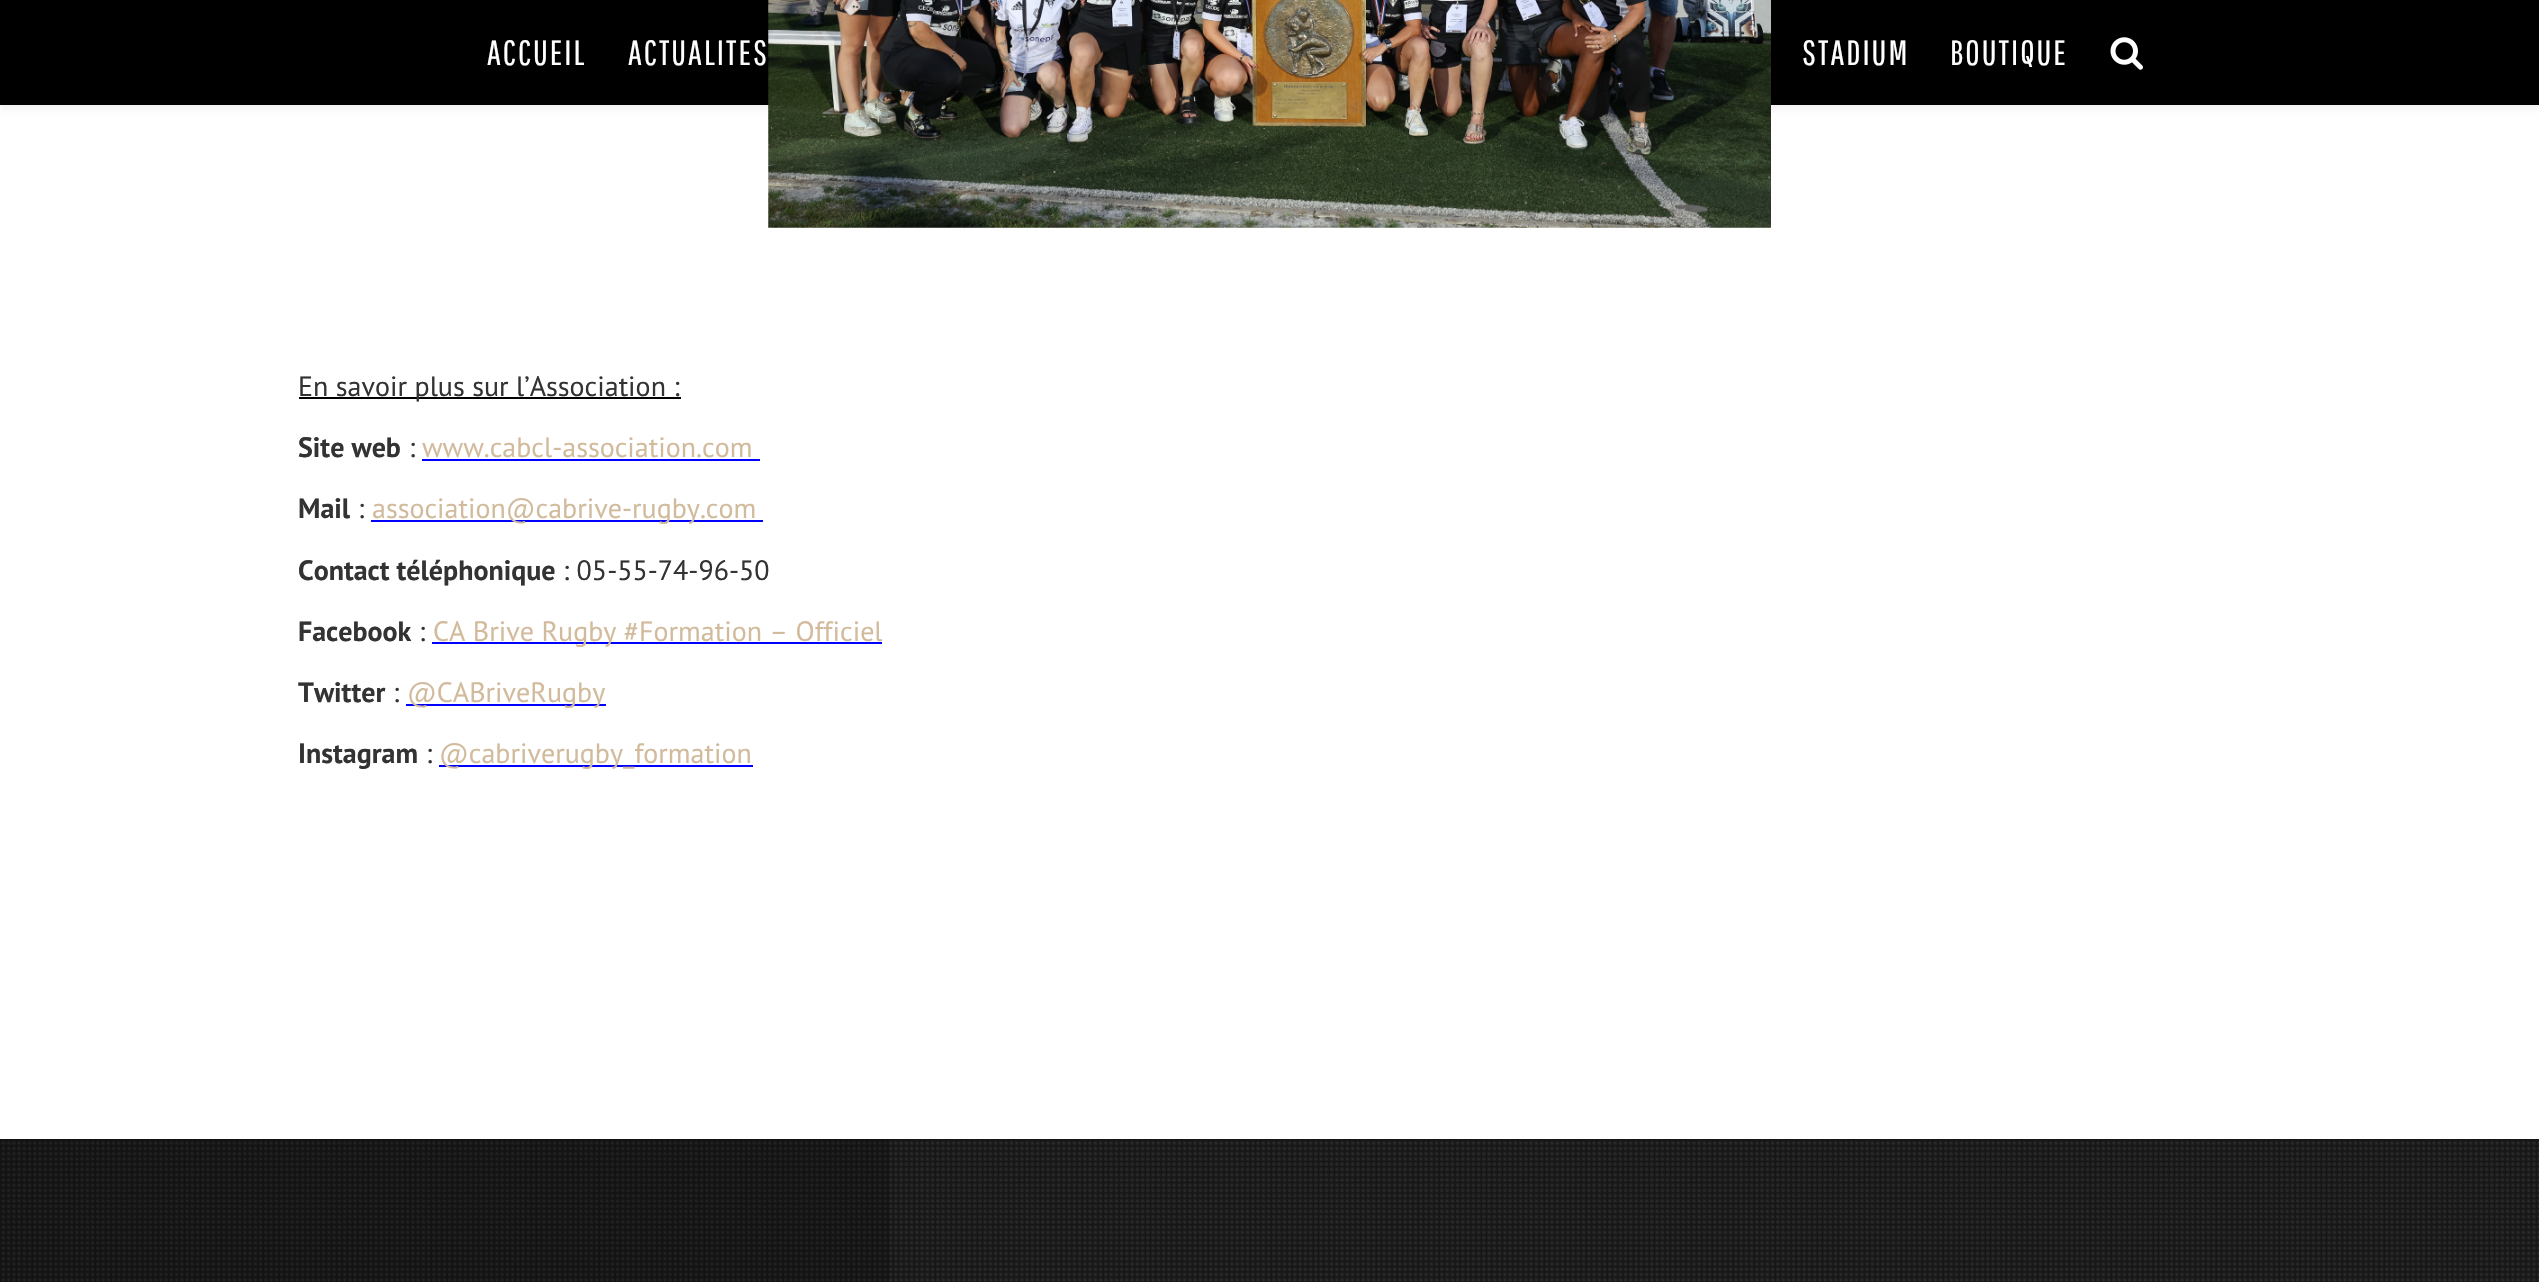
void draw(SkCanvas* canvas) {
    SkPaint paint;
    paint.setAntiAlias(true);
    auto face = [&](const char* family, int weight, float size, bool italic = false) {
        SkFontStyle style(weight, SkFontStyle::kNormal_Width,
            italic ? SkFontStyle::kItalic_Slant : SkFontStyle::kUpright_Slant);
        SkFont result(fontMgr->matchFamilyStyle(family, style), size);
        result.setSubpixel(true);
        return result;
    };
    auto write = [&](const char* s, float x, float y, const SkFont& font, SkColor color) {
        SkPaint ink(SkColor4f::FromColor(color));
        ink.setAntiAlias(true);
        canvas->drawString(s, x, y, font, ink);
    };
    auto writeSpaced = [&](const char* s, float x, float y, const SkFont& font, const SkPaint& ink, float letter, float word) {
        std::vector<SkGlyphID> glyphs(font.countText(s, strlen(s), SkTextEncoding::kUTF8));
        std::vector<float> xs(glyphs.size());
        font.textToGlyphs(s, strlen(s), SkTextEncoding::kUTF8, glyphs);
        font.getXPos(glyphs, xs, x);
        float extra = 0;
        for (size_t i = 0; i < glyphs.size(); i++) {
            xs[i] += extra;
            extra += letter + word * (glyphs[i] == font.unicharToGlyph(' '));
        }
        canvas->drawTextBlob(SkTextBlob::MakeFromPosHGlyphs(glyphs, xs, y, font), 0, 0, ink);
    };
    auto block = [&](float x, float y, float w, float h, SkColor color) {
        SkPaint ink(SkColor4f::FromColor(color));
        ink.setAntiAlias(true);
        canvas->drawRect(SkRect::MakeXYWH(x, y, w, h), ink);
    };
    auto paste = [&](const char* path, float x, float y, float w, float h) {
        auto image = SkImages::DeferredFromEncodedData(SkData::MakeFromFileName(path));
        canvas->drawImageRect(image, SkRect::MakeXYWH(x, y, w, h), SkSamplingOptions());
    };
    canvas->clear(SK_ColorWHITE);
    paint.setColor(SkColorSetARGB(13, 0, 0, 0));
    paint.setMaskFilter(SkMaskFilter::MakeBlur(kNormal_SkBlurStyle, 2.5f));
    canvas->drawRect(SkRect::MakeXYWH(0, 5, 2539, 105), paint);
    paint.setMaskFilter(nullptr);
    block(0, 0, 2539, 105, SK_ColorBLACK);
    auto kFont1 = face("Pathway Gothic One", 400, 35);
    paint.setColor(SK_ColorWHITE);
    writeSpaced("ACCUEIL", 487, 65, kFont1, paint, 2, 0);
    writeSpaced("ACTUALITES", 628, 65, kFont1, paint, 2, 0);
    writeSpaced("STADIUM", 1802, 65, kFont1, paint, 2, 0);
    writeSpaced("BOUTIQUE", 1950, 65, kFont1, paint, 2, 0);
    paste("pic1.png", 2110, 37, 33, 33);
    paste("pic2.png", 768, 0, 1003, 228);
    block(299, 397, 382, 2, SK_ColorBLACK);
    auto kFont2 = face("PT Sans", 400, 28);
    write("En savoir plus sur l’Association :", 298, 396, kFont2, SkColorSetRGB(51, 51, 51));
    auto kFont3 = face("PT Sans", 700, 28);
    write("Site web", 298, 457, kFont3, SkColorSetRGB(51, 51, 51));
    write(":", 409, 457, kFont2, SkColorSetRGB(51, 51, 51));
    write("www.cabcl-association.com", 422, 457, kFont2, SkColorSetRGB(210, 187, 156));
    block(422, 459, 338, 2, SkColorSetRGB(0, 0, 255));
    write("Mail", 298, 518, kFont3, SkColorSetRGB(51, 51, 51));
    write(":", 358, 518, kFont2, SkColorSetRGB(51, 51, 51));
    block(371, 520, 392, 2, SkColorSetRGB(0, 0, 255));
    write("association@cabrive-rugby.com", 372, 518, kFont2, SkColorSetRGB(210, 187, 156));
    write("Contact téléphonique", 298, 580, kFont3, SkColorSetRGB(51, 51, 51));
    write(": 05-55-74-96-50", 563, 580, kFont2, SkColorSetRGB(51, 51, 51));
    write("Facebook", 298, 641, kFont3, SkColorSetRGB(51, 51, 51));
    write(":", 419, 641, kFont2, SkColorSetRGB(51, 51, 51));
    block(432, 642, 450, 2, SkColorSetRGB(0, 0, 255));
    write("CA Brive Rugby #Formation – Officiel", 433, 641, kFont2, SkColorSetRGB(210, 187, 156));
    write("Twitter", 298, 702, kFont3, SkColorSetRGB(51, 51, 51));
    write(":", 393, 702, kFont2, SkColorSetRGB(51, 51, 51));
    block(406, 704, 200, 2, SkColorSetRGB(0, 0, 255));
    write("@CABriveRugby", 407, 702, kFont2, SkColorSetRGB(210, 187, 156));
    write("Instagram", 298, 763, kFont3, SkColorSetRGB(51, 51, 51));
    write(":", 426, 763, kFont2, SkColorSetRGB(51, 51, 51));
    block(439, 765, 314, 2, SkColorSetRGB(0, 0, 255));
    write("@cabriverugby_formation", 439, 763, kFont2, SkColorSetRGB(210, 187, 156));
    block(0, 1139, 2539, 143, SkColorSetRGB(18, 17, 17));
    paste("pic3.png", 0, 1139, 2539, 143);
    block(0, 1139, 889, 143, SkColorSetARGB(51, 0, 0, 0));
}
